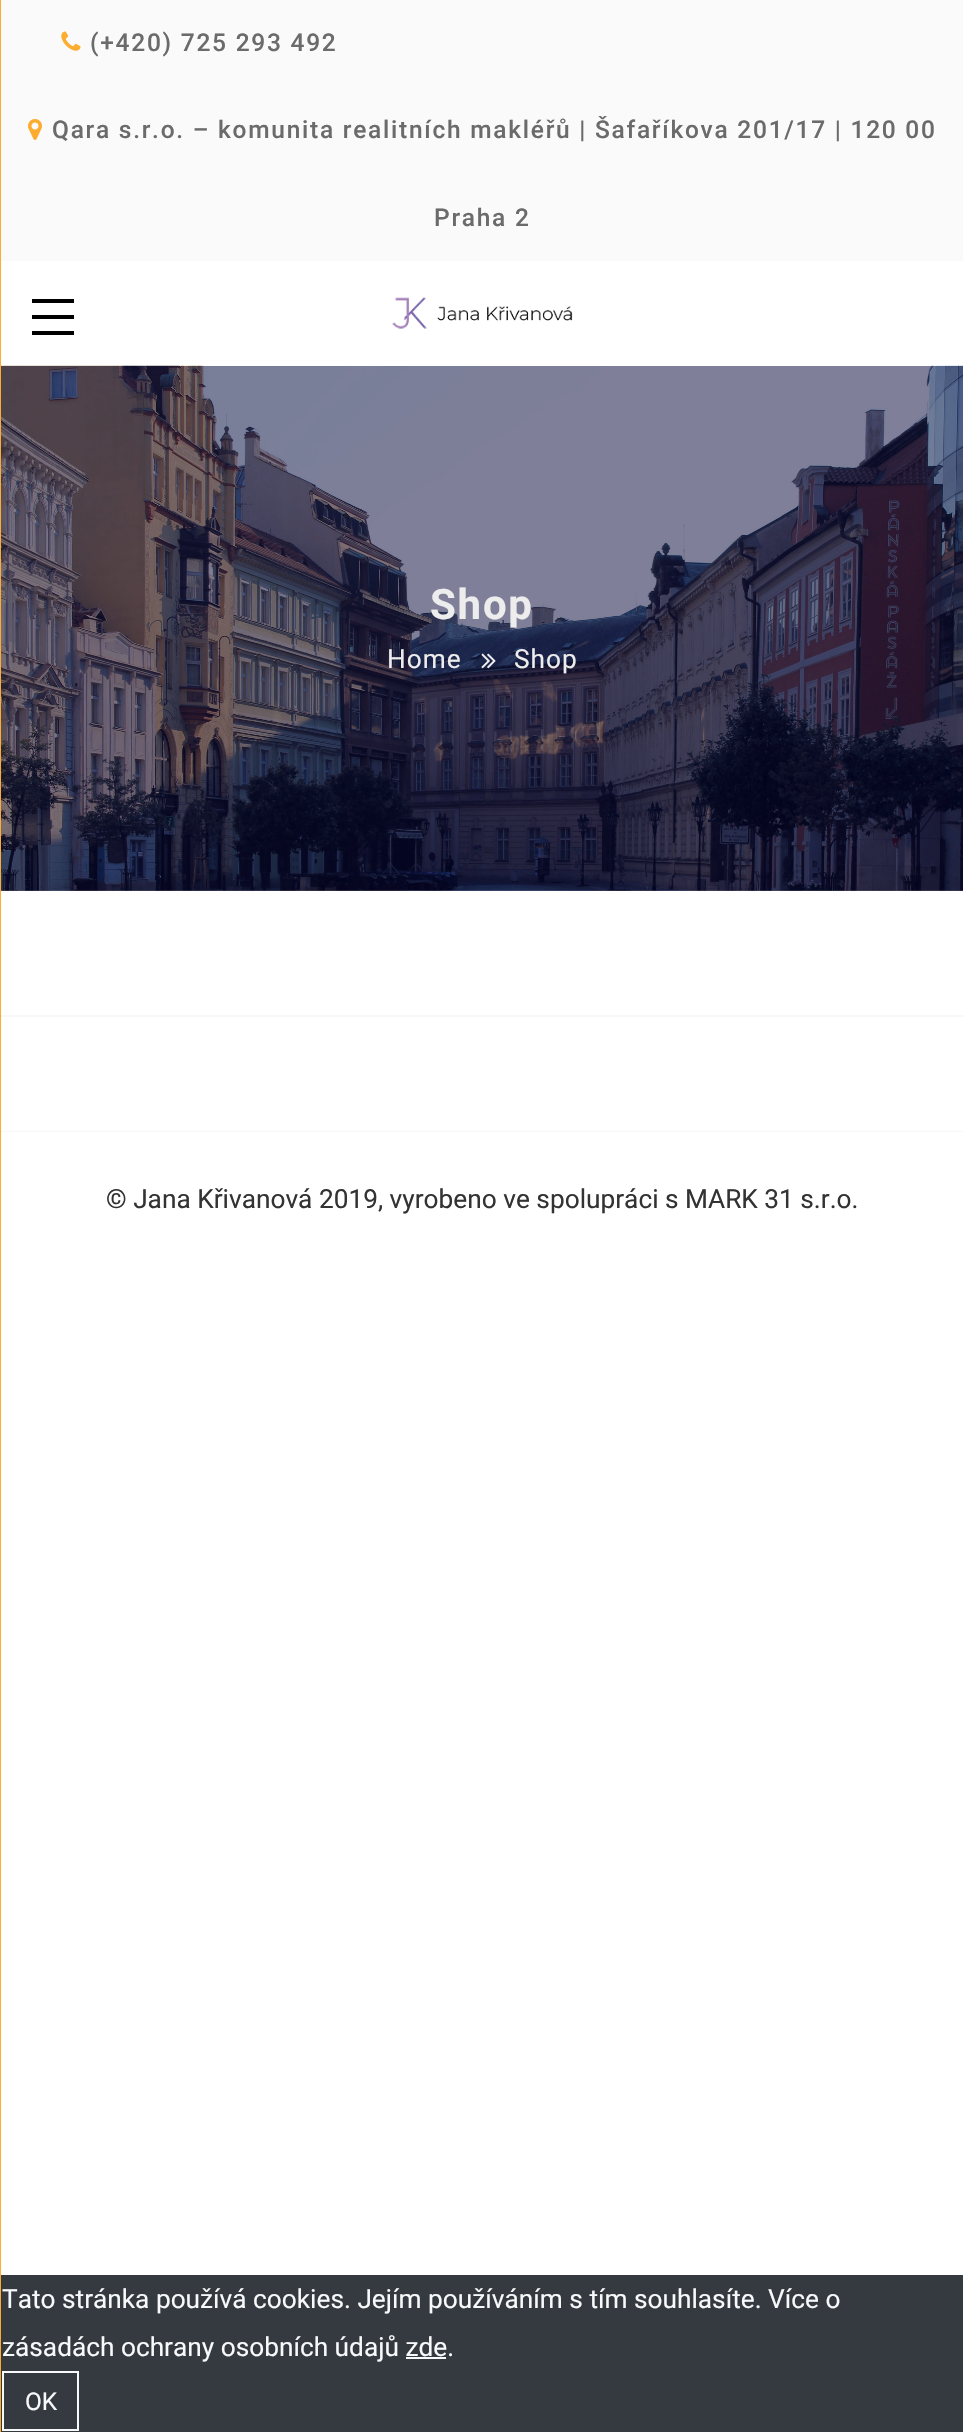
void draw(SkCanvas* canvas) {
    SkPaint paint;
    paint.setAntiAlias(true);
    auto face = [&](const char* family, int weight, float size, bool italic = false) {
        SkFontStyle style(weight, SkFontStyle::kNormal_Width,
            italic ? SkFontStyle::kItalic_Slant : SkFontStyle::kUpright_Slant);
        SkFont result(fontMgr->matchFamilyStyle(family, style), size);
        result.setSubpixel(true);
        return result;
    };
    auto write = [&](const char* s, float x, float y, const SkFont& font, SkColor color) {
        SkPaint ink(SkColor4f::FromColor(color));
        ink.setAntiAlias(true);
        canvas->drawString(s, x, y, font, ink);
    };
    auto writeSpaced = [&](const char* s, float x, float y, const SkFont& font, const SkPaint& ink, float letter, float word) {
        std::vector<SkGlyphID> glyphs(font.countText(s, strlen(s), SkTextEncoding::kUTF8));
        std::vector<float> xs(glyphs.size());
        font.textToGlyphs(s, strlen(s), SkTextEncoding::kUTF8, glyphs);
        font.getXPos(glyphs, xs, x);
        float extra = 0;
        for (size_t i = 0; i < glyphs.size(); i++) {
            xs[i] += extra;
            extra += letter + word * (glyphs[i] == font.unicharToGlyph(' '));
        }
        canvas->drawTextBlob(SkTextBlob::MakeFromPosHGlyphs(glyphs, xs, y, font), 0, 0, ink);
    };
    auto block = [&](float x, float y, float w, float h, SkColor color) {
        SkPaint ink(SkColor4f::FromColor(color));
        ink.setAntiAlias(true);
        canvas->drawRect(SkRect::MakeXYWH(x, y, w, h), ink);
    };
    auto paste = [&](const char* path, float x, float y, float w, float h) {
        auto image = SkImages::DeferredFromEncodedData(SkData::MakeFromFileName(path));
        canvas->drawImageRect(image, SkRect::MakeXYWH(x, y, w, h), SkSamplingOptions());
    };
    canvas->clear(SK_ColorWHITE);
    block(0, 1015, 963, 2, SkColorSetRGB(247, 247, 247));
    block(0, 1131, 963, 1, SkColorSetRGB(247, 247, 247));
    block(0, 0, 1, 2432, SkColorSetRGB(252, 172, 47));
    block(32, 299, 42, 4, SK_ColorBLACK);
    block(32, 315, 42, 4, SK_ColorBLACK);
    block(32, 331, 42, 4, SK_ColorBLACK);
    paste("pic1.png", 392, 297, 181, 32);
    block(1, 0, 962, 261, SkColorSetRGB(250, 250, 250));
    paste("pic2.png", 61, 31, 20, 20);
    auto kFont1 = face("Roboto", 500, 24.5f);
    paint.setColor(SkColorSetRGB(107, 107, 107));
    writeSpaced("(+420) 725 293 492", 90, 51, kFont1, paint, 1.75f, 0);
    paste("pic3.png", 28, 119, 14, 21);
    writeSpaced("Qara s.r.o. – komunita realitních makléřů | Šafaříkova 201/17 | 120 00", 52, 138, kFont1, paint, 1.75f, 0);
    writeSpaced("Praha 2", 434, 226, kFont1, paint, 1.75f, 0);
    paste("pic4.png", 1, 365, 962, 526);
    block(1, 366, 962, 525, SkColorSetARGB(128, 0, 0, 51));
    auto kFont2 = face("Roboto", 700, 42);
    paint.setColor(SkColorSetRGB(237, 237, 237));
    writeSpaced("Shop", 430, 619, kFont2, paint, 1.75f, 0);
    auto kFont3 = face("Roboto", 400, 26.25f);
    writeSpaced("Home", 387, 668, kFont3, paint, 1, 0);
    paste("pic5.png", 481, 653, 15, 16);
    writeSpaced("Shop", 514, 668, kFont3, paint, 1, 0);
    write("© Jana Křivanová 2019, vyrobeno ve spolupráci s MARK 31 s.r.o.", 106, 1208, kFont3, SkColorSetRGB(51, 51, 51));
    block(1, 2275, 962, 157, SkColorSetRGB(52, 58, 64));
    write("Tato stránka používá cookies. Jejím používáním s tím souhlasíte. Více o", 2, 2308, kFont3, SkColorSetRGB(248, 249, 250));
    write("zásadách ochrany osobních údajů zde.", 2, 2356, kFont3, SkColorSetRGB(248, 249, 250));
    block(406, 2357, 40, 2, SkColorSetRGB(248, 249, 250));
    paint.setStyle(SkPaint::kStroke_Style);
    paint.setStrokeWidth(2);
    paint.setColor(SkColorSetRGB(248, 249, 250));
    canvas->drawRect(SkRect::MakeXYWH(3, 2372, 75, 58), paint);
    auto kFont4 = face("Roboto", 400, 24.5f);
    write("OK", 25, 2410, kFont4, SkColorSetRGB(248, 249, 250));
}
